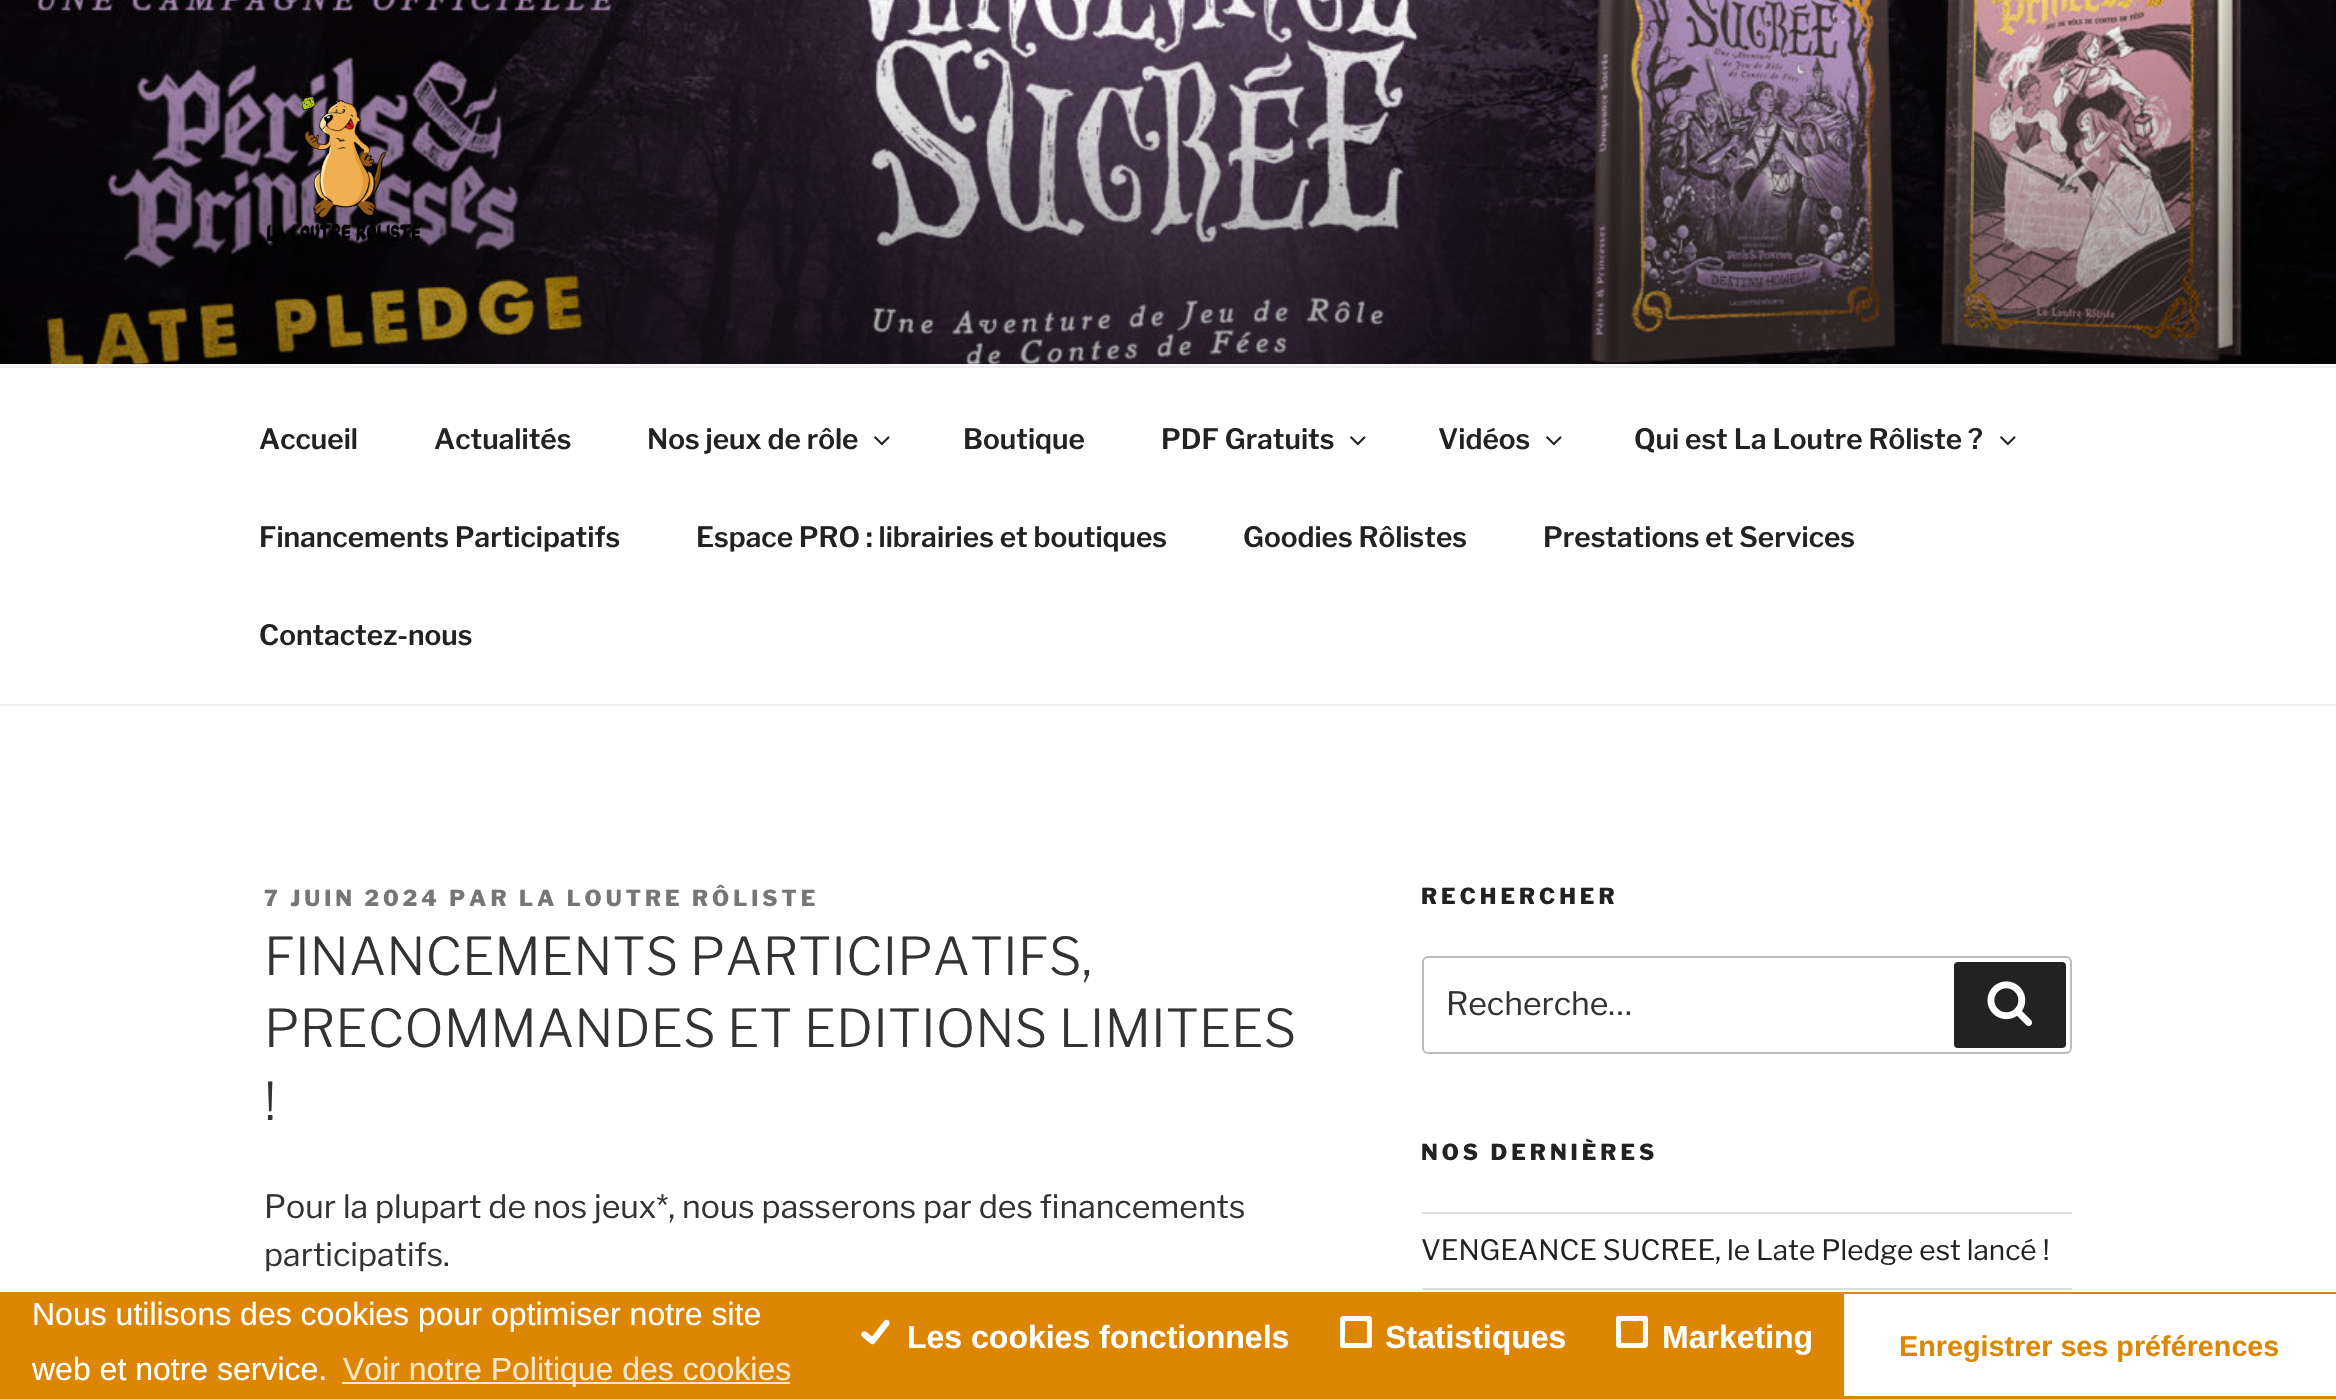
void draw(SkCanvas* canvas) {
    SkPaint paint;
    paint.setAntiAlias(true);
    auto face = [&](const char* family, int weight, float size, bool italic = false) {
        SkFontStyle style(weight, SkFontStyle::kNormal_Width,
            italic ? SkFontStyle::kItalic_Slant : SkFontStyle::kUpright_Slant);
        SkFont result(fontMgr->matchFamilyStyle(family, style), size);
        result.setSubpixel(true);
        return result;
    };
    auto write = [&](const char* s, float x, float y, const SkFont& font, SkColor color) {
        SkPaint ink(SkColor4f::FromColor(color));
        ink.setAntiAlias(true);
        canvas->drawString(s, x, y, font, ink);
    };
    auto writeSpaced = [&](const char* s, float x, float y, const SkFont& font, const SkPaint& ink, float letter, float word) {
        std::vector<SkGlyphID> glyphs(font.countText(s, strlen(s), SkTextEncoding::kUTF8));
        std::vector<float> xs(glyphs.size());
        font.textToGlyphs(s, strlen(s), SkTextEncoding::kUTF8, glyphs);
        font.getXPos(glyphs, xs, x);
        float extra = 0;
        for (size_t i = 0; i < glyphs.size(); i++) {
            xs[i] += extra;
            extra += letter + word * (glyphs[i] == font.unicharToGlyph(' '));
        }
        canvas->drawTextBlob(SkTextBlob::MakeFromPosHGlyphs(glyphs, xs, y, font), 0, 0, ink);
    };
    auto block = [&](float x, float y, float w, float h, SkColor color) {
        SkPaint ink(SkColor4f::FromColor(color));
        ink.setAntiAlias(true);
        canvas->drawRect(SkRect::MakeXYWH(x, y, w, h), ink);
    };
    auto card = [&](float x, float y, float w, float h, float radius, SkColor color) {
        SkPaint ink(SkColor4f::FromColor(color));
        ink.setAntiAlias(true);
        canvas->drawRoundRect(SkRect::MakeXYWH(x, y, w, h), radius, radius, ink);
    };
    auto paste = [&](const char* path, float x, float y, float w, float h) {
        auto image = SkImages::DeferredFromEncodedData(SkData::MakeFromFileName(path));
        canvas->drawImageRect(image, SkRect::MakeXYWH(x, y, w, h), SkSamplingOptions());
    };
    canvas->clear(SK_ColorWHITE);
    block(0, 364, 2336, 2, SkColorSetRGB(250, 250, 250));
    paste("pic1.png", 0, 0, 2336, 364);
    paste("pic2.png", 266, 96, 155, 146);
    block(0, 366, 2336, 2, SkColorSetRGB(238, 238, 238));
    block(0, 704, 2336, 2, SkColorSetRGB(238, 238, 238));
    auto kFont1 = face("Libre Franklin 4", 100, 28);
    write("Accueil", 259, 449, kFont1, SkColorSetRGB(34, 34, 34));
    write("Actualités", 434, 449, kFont1, SkColorSetRGB(34, 34, 34));
    write("Nos jeux de rôle", 647, 449, kFont1, SkColorSetRGB(34, 34, 34));
    paste("pic3.png", 874, 436, 16, 10);
    write("Boutique", 963, 449, kFont1, SkColorSetRGB(34, 34, 34));
    write("PDF Gratuits", 1161, 449, kFont1, SkColorSetRGB(34, 34, 34));
    paste("pic3.png", 1350, 436, 16, 10);
    write("Vidéos", 1438, 449, kFont1, SkColorSetRGB(34, 34, 34));
    paste("pic3.png", 1546, 436, 16, 10);
    write("Qui est La Loutre Rôliste ?", 1634, 449, kFont1, SkColorSetRGB(34, 34, 34));
    paste("pic3.png", 2000, 436, 16, 10);
    write("Financements Participatifs", 259, 547, kFont1, SkColorSetRGB(34, 34, 34));
    write("Espace PRO : librairies et boutiques", 696, 547, kFont1, SkColorSetRGB(34, 34, 34));
    write("Goodies Rôlistes", 1243, 547, kFont1, SkColorSetRGB(34, 34, 34));
    write("Prestations et Services", 1543, 547, kFont1, SkColorSetRGB(34, 34, 34));
    write("Contactez-nous", 259, 645, kFont1, SkColorSetRGB(34, 34, 34));
    auto kFont2 = face("Libre Franklin", 100, 22);
    paint.setColor(SkColorSetRGB(118, 118, 118));
    writeSpaced("7 JUIN 2024 PAR LA LOUTRE RÔLISTE", 264, 906, kFont2, paint, 4, 0);
    auto kFont3 = face("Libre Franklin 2", 100, 52);
    write("FINANCEMENTS PARTICIPATIFS,", 264, 975, kFont3, SkColorSetRGB(51, 51, 51));
    write("PRECOMMANDES ET EDITIONS LIMITEES", 264, 1047, kFont3, SkColorSetRGB(51, 51, 51));
    write("!", 264, 1120, kFont3, SkColorSetRGB(51, 51, 51));
    auto kFont4 = face("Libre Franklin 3", 100, 32);
    write("Pour la plupart de nos jeux*, nous passerons par des financements", 264, 1218, kFont4, SkColorSetRGB(51, 51, 51));
    write("participatifs.", 264, 1266, kFont4, SkColorSetRGB(51, 51, 51));
    paint.setColor(SkColorSetRGB(34, 34, 34));
    writeSpaced("RECHERCHER", 1421, 904, kFont2, paint, 4, 0);
    paint.setStyle(SkPaint::kStroke_Style);
    paint.setStrokeWidth(2);
    paint.setColor(SkColorSetRGB(187, 187, 187));
    canvas->drawRoundRect(SkRect::MakeXYWH(1423, 957, 648, 96), 5, 5, paint);
    write("Recherche…", 1446, 1015, kFont4, SkColorSetRGB(51, 51, 51));
    card(1954, 962, 112, 86, 4, SkColorSetRGB(34, 34, 34));
    paste("pic4.png", 1987, 981, 46, 45);
    paint.setStyle(SkPaint::kFill_Style);
    paint.setColor(SkColorSetRGB(34, 34, 34));
    writeSpaced("NOS DERNIÈRES", 1421, 1160, kFont2, paint, 4, 0);
    block(1422, 1212, 650, 2, SkColorSetRGB(221, 221, 221));
    block(1422, 1288, 650, 2, SkColorSetRGB(221, 221, 221));
    auto kFont5 = face("Libre Franklin 3", 100, 28);
    write("VENGEANCE SUCREE, le Late Pledge est lancé !", 1421, 1260, kFont5, SkColorSetRGB(34, 34, 34));
    block(0, 1292, 2336, 107, SkColorSetRGB(221, 134, 4));
    auto kFont6 = face("Liberation Sans", 400, 32);
    write("Nous utilisons des cookies pour optimiser notre site", 32, 1325, kFont6, SK_ColorWHITE);
    write("web et notre service.", 32, 1380, kFont6, SK_ColorWHITE);
    block(342, 1382, 448, 2, SkColorSetRGB(248, 231, 205));
    write("Voir notre Politique des cookies", 343, 1380, kFont6, SkColorSetRGB(248, 231, 205));
    paint.setStyle(SkPaint::kStroke_Style);
    paint.setStrokeWidth(6.2f);
    paint.setStrokeCap(SkPaint::kRound_Cap);
    paint.setStrokeJoin(SkPaint::kRound_Join);
    paint.setColor(SK_ColorWHITE);
    canvas->drawPath(SkPathBuilder().moveTo(864.5f, 1334.5f).lineTo(872.5f, 1341).lineTo(886.5f, 1323).detach(), paint);
    auto kFont7 = face("Liberation Sans", 700, 32);
    write("Les cookies fonctionnels", 907, 1348, kFont7, SK_ColorWHITE);
    canvas->save();
    canvas->clipRect(SkRect::MakeXYWH(1340, 1316, 32, 32));
    canvas->drawPath(SkPathBuilder().moveTo(1342, 1332).lineTo(1342, 1326).cubicTo(1342, 1323, 1341.5f, 1318.5f, 1345.5f, 1318).lineTo(1363.5f, 1318).cubicTo(1369, 1318, 1370, 1319, 1370, 1324.5f).lineTo(1370, 1342).cubicTo(1370, 1348, 1362.5f, 1346, 1358.5f, 1346).lineTo(1351, 1346).cubicTo(1348.5f, 1346, 1344, 1347, 1342.5f, 1344.5f).cubicTo(1341, 1342, 1342, 1335, 1342, 1332).detach(), paint);
    canvas->restore();
    write("Statistiques", 1385, 1348, kFont7, SK_ColorWHITE);
    canvas->save();
    canvas->clipRect(SkRect::MakeXYWH(1616, 1316, 32, 32));
    canvas->drawPath(SkPathBuilder().moveTo(1618, 1332).cubicTo(1618, 1329, 1617, 1322, 1618.5f, 1319.5f).cubicTo(1620, 1317, 1624.5f, 1318, 1627, 1318).lineTo(1634.5f, 1318).cubicTo(1638.5f, 1318, 1646, 1316, 1646, 1322).lineTo(1646, 1339.5f).cubicTo(1646, 1345, 1645, 1346, 1639.5f, 1346).lineTo(1621.5f, 1346).cubicTo(1617.5f, 1345.5f, 1618, 1341, 1618, 1338).lineTo(1618, 1332).detach(), paint);
    canvas->restore();
    write("Marketing", 1662, 1348, kFont7, SK_ColorWHITE);
    block(1844, 1294, 492, 102, SK_ColorWHITE);
    auto kFont8 = face("Liberation Sans", 700, 28.75f);
    write("Enregistrer ses préférences", 1899, 1356, kFont8, SkColorSetRGB(221, 134, 4));
}
